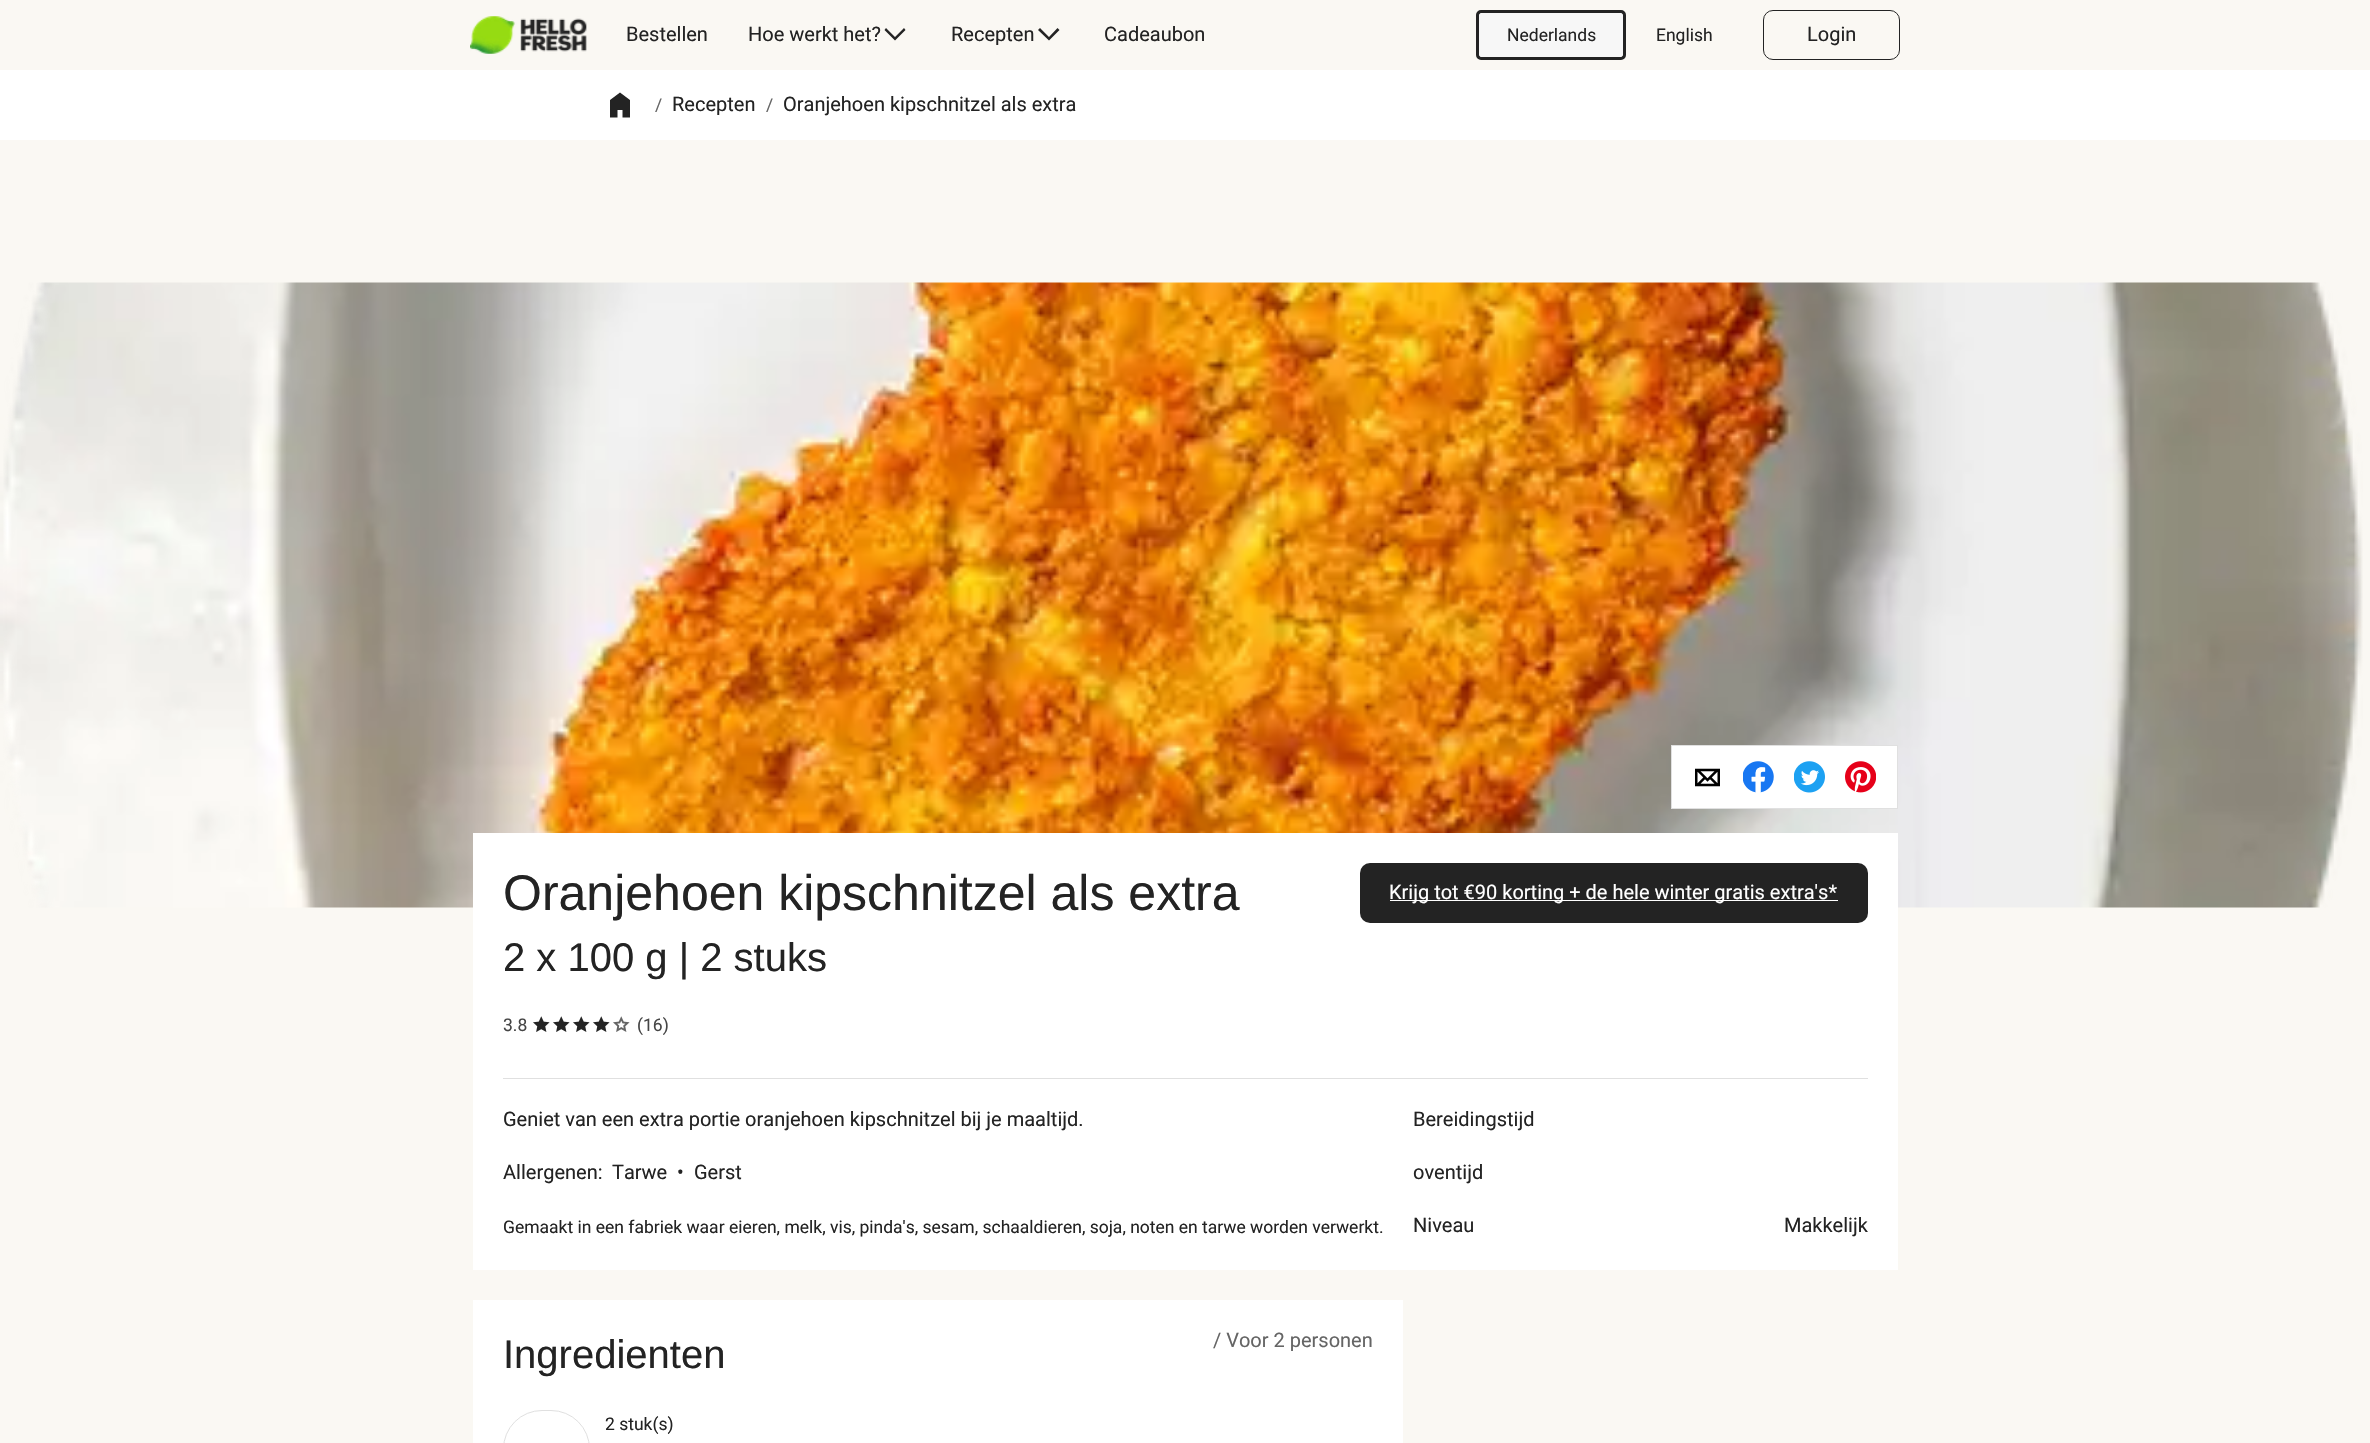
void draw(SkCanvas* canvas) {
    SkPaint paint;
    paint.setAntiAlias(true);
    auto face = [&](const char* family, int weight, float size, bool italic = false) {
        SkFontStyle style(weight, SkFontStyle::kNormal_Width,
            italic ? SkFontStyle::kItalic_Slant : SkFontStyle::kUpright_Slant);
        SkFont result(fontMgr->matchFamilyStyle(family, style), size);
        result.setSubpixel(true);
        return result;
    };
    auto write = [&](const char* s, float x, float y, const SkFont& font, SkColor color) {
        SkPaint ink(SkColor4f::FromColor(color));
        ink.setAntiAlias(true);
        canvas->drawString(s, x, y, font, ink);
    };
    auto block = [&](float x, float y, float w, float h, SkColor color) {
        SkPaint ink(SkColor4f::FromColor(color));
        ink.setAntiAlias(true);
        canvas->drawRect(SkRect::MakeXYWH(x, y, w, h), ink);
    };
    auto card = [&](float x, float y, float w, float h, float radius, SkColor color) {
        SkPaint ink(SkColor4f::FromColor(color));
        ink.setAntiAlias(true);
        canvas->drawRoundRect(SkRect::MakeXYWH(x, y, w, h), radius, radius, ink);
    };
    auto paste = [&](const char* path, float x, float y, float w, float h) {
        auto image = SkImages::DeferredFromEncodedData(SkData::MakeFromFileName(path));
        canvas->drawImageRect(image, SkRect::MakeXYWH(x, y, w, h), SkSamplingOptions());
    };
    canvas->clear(SkColorSetRGB(250, 248, 243));
    paste("pic1.png", 470, 16, 117, 38);
    auto kFont1 = face("Roboto", 400, 20);
    write("Bestellen", 626, 41, kFont1, SkColorSetRGB(35, 35, 35));
    write("Hoe werkt het?", 748, 41, kFont1, SkColorSetRGB(35, 35, 35));
    paint.setColor(SkColorSetRGB(36, 36, 36));
    canvas->drawPath(SkPathBuilder(SkPathFillType::kEvenOdd).moveTo(895, 40.5f).lineTo(905.5f, 30).lineTo(904, 28).lineTo(895, 37).lineTo(886, 28).lineTo(884.5f, 30).close().detach(), paint);
    write("Recepten", 951, 41, kFont1, SkColorSetRGB(35, 35, 35));
    canvas->drawPath(SkPathBuilder(SkPathFillType::kEvenOdd).moveTo(1049, 40.5f).lineTo(1059.5f, 30).lineTo(1057.5f, 28).lineTo(1049, 37).lineTo(1040, 28).lineTo(1038, 30).close().detach(), paint);
    write("Cadeaubon", 1104, 41, kFont1, SkColorSetRGB(35, 35, 35));
    paint.setColor(SkColorSetRGB(247, 247, 247));
    canvas->drawRoundRect(SkRect::MakeXYWH(1477.5f, 11.5f, 147, 47), 3.5f, 3.5f, paint);
    paint.setStyle(SkPaint::kStroke_Style);
    paint.setStrokeWidth(3);
    paint.setColor(SkColorSetRGB(35, 35, 35));
    canvas->drawRoundRect(SkRect::MakeXYWH(1477.5f, 11.5f, 147, 47), 3.5f, 3.5f, paint);
    paint.setStrokeWidth(1);
    canvas->drawRoundRect(SkRect::MakeXYWH(1476.5f, 10.5f, 149, 49), 9.5f, 9.5f, paint);
    auto kFont2 = face("Roboto", 400, 17.5f);
    write("Nederlands", 1507, 41, kFont2, SkColorSetRGB(35, 35, 35));
    write("English", 1656, 41, kFont2, SkColorSetRGB(35, 35, 35));
    canvas->drawRoundRect(SkRect::MakeXYWH(1763.5f, 10.5f, 136, 49), 9.5f, 9.5f, paint);
    write("Login", 1807, 41, kFont1, SkColorSetRGB(35, 35, 35));
    block(0, 70, 2370, 70, SK_ColorWHITE);
    paint.setStyle(SkPaint::kFill_Style);
    canvas->drawPath(SkPathBuilder().moveTo(620, 92.5f).lineTo(630, 100).lineTo(630, 117.5f).lineTo(622.5f, 117.5f).lineTo(622.5f, 110).lineTo(617.5f, 110).lineTo(617.5f, 117.5f).lineTo(610, 117.5f).lineTo(610, 100).close().detach(), paint);
    write("/", 655, 111, kFont2, SkColorSetRGB(101, 101, 101));
    write("Recepten", 672, 111, kFont1, SkColorSetRGB(35, 35, 35));
    write("/", 766, 111, kFont2, SkColorSetRGB(101, 101, 101));
    write("Oranjehoen kipschnitzel als extra", 783, 111, kFont1, SkColorSetRGB(35, 35, 35));
    paste("pic2.png", 0, 282, 2363, 626);
    paint.setColor(SK_ColorWHITE);
    canvas->drawRect(SkRect::MakeXYWH(1671.5f, 745.5f, 226, 63), paint);
    paint.setStyle(SkPaint::kStroke_Style);
    paint.setColor(SkColorSetRGB(224, 224, 224));
    canvas->drawRect(SkRect::MakeXYWH(1671.5f, 745.5f, 226, 63), paint);
    paste("pic3.png", 1695, 768, 25, 19);
    paste("pic4.png", 1743, 761, 31, 32);
    paste("pic5.png", 1794, 761, 31, 32);
    paste("pic6.png", 1845, 761, 31, 32);
    block(473, 833, 1425, 437, SK_ColorWHITE);
    auto kFont3 = face("Liberation Sans", 400, 50);
    write("Oranjehoen kipschnitzel als extra", 503, 910, kFont3, SkColorSetRGB(35, 35, 35));
    auto kFont4 = face("Liberation Sans", 400, 40);
    write("2 x 100 g | 2 stuks", 503, 971, kFont4, SkColorSetRGB(35, 35, 35));
    write("3.8", 503, 1031, kFont2, SkColorSetRGB(69, 69, 69));
    paste("pic7.png", 533, 1016, 17, 16);
    paste("pic7.png", 553, 1016, 17, 16);
    paste("pic7.png", 573, 1016, 17, 16);
    paste("pic7.png", 593, 1016, 17, 16);
    paste("pic8.png", 613, 1016, 17, 16);
    write("(16)", 637, 1031, kFont2, SkColorSetRGB(69, 69, 69));
    card(1360, 863, 508, 60, 10, SkColorSetRGB(35, 35, 35));
    block(1390, 900, 448, 1, SK_ColorWHITE);
    write("Krijg tot €90 korting + de hele winter gratis extra's*", 1389, 899, kFont1, SK_ColorWHITE);
    block(503, 1078, 1365, 1, SkColorSetRGB(224, 224, 224));
    write("Geniet van een extra portie oranjehoen kipschnitzel bij je maaltijd.", 503, 1126, kFont1, SkColorSetRGB(35, 35, 35));
    write("Allergenen:", 503, 1179, kFont1, SkColorSetRGB(35, 35, 35));
    write("Tarwe", 612, 1179, kFont1, SkColorSetRGB(35, 35, 35));
    write("•", 677, 1179, kFont1, SkColorSetRGB(35, 35, 35));
    write("Gerst", 694, 1179, kFont1, SkColorSetRGB(35, 35, 35));
    write("Gemaakt in een fabriek waar eieren, melk, vis, pinda's, sesam, schaaldieren, soja, noten en tarwe worden verwerkt.", 503, 1233, kFont2, SkColorSetRGB(35, 35, 35));
    write("Bereidingstijd", 1413, 1126, kFont1, SkColorSetRGB(35, 35, 35));
    write("oventijd", 1413, 1179, kFont1, SkColorSetRGB(35, 35, 35));
    write("Niveau", 1413, 1232, kFont1, SkColorSetRGB(35, 35, 35));
    write("Makkelijk", 1784, 1232, kFont1, SkColorSetRGB(35, 35, 35));
    block(473, 1300, 930, 143, SK_ColorWHITE);
    write("/ Voor 2 personen", 1213, 1347, kFont1, SkColorSetRGB(101, 101, 101));
    canvas->drawRoundRect(SkRect::MakeXYWH(503.5f, 1410.5f, 86, 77), 43, 43, paint);
    write("2 stuk(s)", 605, 1430, kFont2, SkColorSetRGB(35, 35, 35));
    write("Ingredienten", 503, 1368, kFont4, SkColorSetRGB(35, 35, 35));
}
